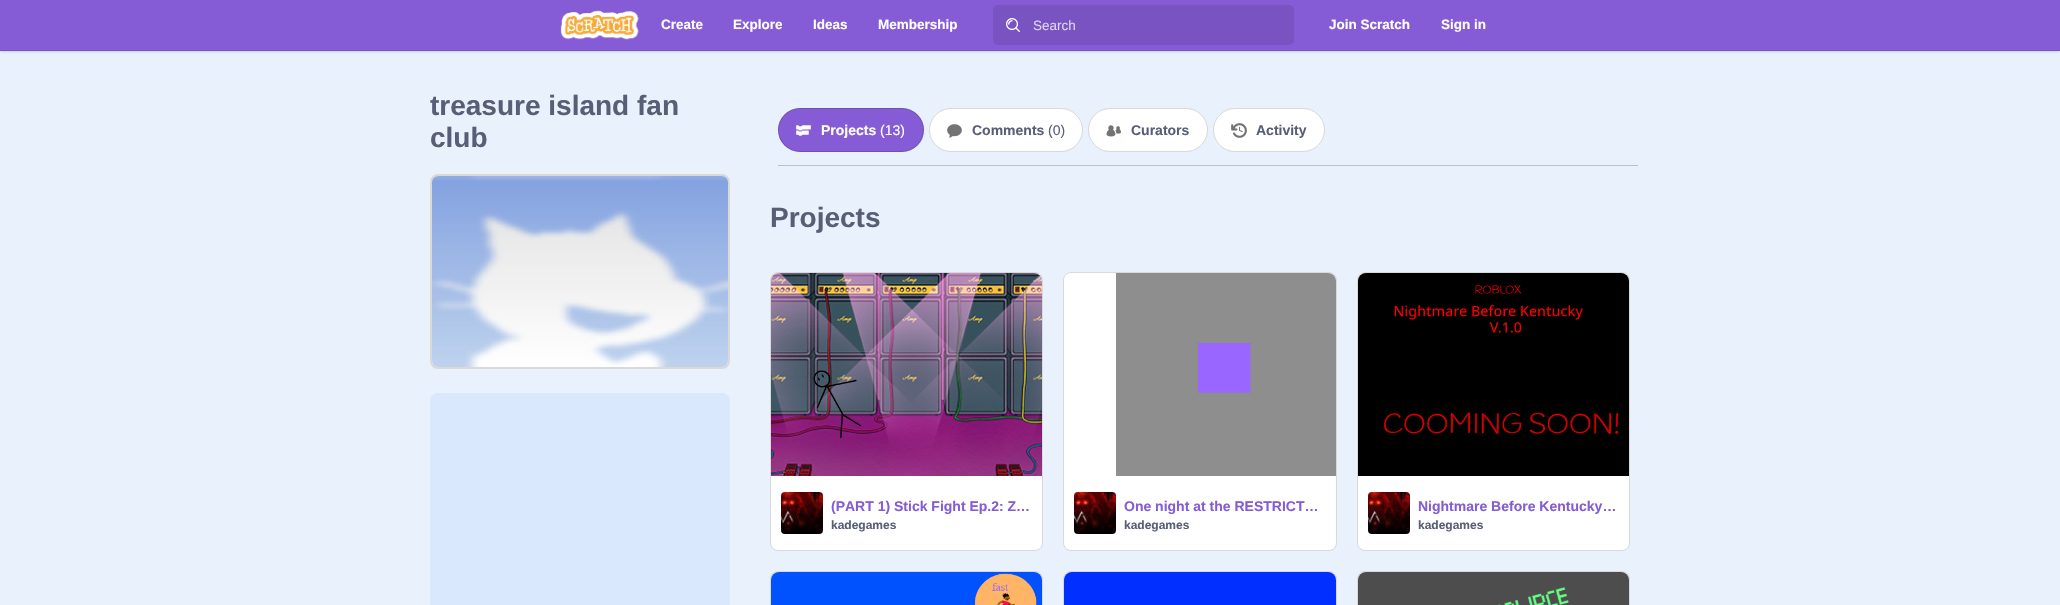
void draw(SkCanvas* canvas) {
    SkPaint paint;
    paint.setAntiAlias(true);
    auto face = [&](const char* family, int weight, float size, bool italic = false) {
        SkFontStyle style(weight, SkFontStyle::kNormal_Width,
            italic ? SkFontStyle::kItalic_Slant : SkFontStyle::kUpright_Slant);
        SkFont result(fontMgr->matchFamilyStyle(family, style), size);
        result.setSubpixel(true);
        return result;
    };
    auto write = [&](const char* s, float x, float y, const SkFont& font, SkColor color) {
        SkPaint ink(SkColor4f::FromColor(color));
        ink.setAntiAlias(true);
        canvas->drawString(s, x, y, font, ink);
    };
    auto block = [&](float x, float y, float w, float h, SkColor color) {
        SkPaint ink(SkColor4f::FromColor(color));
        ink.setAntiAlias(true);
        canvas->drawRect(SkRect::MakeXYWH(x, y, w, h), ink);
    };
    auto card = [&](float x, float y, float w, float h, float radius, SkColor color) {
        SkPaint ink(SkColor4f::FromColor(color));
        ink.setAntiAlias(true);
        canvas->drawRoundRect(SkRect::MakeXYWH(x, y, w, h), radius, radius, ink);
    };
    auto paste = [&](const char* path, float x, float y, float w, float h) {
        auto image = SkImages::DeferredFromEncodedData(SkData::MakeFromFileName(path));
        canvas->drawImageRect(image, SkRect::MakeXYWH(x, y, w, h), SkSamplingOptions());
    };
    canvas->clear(SkColorSetRGB(233, 241, 252));
    paint.setColor(SkColorSetARGB(64, 0, 0, 0));
    paint.setMaskFilter(SkMaskFilter::MakeBlur(kNormal_SkBlurStyle, 1.5f));
    canvas->drawRect(SkRect::MakeXYWH(0, 0, 2060, 51), paint);
    paint.setMaskFilter(nullptr);
    block(0, 0, 2060, 50, SkColorSetRGB(133, 92, 214));
    block(0, 50, 2060, 1, SkColorSetRGB(120, 83, 193));
    paste("pic1.png", 560, 10, 79, 30);
    auto kFont1 = face("Liberation Sans", 700, 13.5f);
    write("Create", 661, 29, kFont1, SK_ColorWHITE);
    write("Explore", 733, 29, kFont1, SK_ColorWHITE);
    write("Ideas", 813, 29, kFont1, SK_ColorWHITE);
    write("Membership", 878, 29, kFont1, SK_ColorWHITE);
    card(993, 5, 301, 40, 5, SkColorSetRGB(120, 83, 193));
    paste("pic2.png", 1006, 18, 14, 14);
    auto kFont2 = face("Liberation Sans", 400, 13.5f);
    write("Search", 1033, 30, kFont2, SkColorSetRGB(221, 212, 240));
    write("Join Scratch", 1329, 29, kFont1, SK_ColorWHITE);
    write("Sign in", 1441, 29, kFont1, SK_ColorWHITE);
    auto kFont3 = face("Liberation Sans", 700, 28);
    write("treasure island fan", 430, 115, kFont3, SkColorSetRGB(87, 94, 117));
    write("club", 430, 147, kFont3, SkColorSetRGB(87, 94, 117));
    card(430, 174, 300, 195, 8, SK_ColorWHITE);
    paint.setStyle(SkPaint::kStroke_Style);
    paint.setStrokeWidth(2);
    paint.setColor(SkColorSetARGB(38, 0, 0, 0));
    canvas->drawRoundRect(SkRect::MakeXYWH(431, 175, 298, 193), 7, 7, paint);
    paste("pic3.png", 432, 176, 296, 191);
    card(430, 393, 300, 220, 8, SkColorSetRGB(217, 232, 252));
    block(778, 165, 860, 1, SkColorSetRGB(186, 193, 202));
    card(778, 108, 146, 44, 22, SkColorSetRGB(133, 92, 214));
    paint.setStrokeWidth(1);
    canvas->drawRoundRect(SkRect::MakeXYWH(778.5f, 108.5f, 145, 43), 21.5f, 21.5f, paint);
    paste("pic4.png", 796, 125, 15, 11);
    auto kFont4 = face("Liberation Sans", 700, 14);
    write("Projects", 821, 135, kFont4, SK_ColorWHITE);
    auto kFont5 = face("Liberation Sans", 400, 14);
    write("(13)", 880, 135, kFont5, SK_ColorWHITE);
    card(929, 108, 154, 44, 22, SK_ColorWHITE);
    canvas->drawRoundRect(SkRect::MakeXYWH(929.5f, 108.5f, 153, 43), 21.5f, 21.5f, paint);
    paste("pic5.png", 947, 124, 15, 14);
    write("Comments", 972, 135, kFont4, SkColorSetRGB(87, 94, 117));
    write("(0)", 1048, 135, kFont5, SkColorSetRGB(87, 94, 117));
    card(1088, 108, 120, 44, 22, SK_ColorWHITE);
    canvas->drawRoundRect(SkRect::MakeXYWH(1088.5f, 108.5f, 119, 43), 21.5f, 21.5f, paint);
    paste("pic6.png", 1106, 125, 15, 12);
    write("Curators", 1131, 135, kFont4, SkColorSetRGB(87, 94, 117));
    card(1213, 108, 112, 44, 22, SK_ColorWHITE);
    canvas->drawRoundRect(SkRect::MakeXYWH(1213.5f, 108.5f, 111, 43), 21.5f, 21.5f, paint);
    paste("pic7.png", 1231, 123, 16, 15);
    write("Activity", 1256, 135, kFont4, SkColorSetRGB(87, 94, 117));
    write("Projects", 770, 227, kFont3, SkColorSetRGB(87, 94, 117));
    paint.setStyle(SkPaint::kFill_Style);
    paint.setColor(SK_ColorWHITE);
    canvas->drawRoundRect(SkRect::MakeXYWH(770.5f, 272.5f, 272, 278), 7.5f, 7.5f, paint);
    paint.setStyle(SkPaint::kStroke_Style);
    paint.setColor(SkColorSetRGB(217, 217, 217));
    canvas->drawRoundRect(SkRect::MakeXYWH(770.5f, 272.5f, 272, 278), 7.5f, 7.5f, paint);
    paste("pic8.png", 771, 273, 271, 203);
    paste("pic9.png", 781, 492, 42, 42);
    write("(PART 1) Stick Fight Ep.2: Z…", 831, 511, kFont4, SkColorSetRGB(133, 92, 214));
    auto kFont6 = face("Liberation Sans", 700, 12);
    write("kadegames", 831, 529, kFont6, SkColorSetRGB(87, 94, 117));
    paint.setStyle(SkPaint::kFill_Style);
    paint.setColor(SK_ColorWHITE);
    canvas->drawRoundRect(SkRect::MakeXYWH(1063.5f, 272.5f, 273, 278), 7.5f, 7.5f, paint);
    paint.setStyle(SkPaint::kStroke_Style);
    paint.setColor(SkColorSetRGB(217, 217, 217));
    canvas->drawRoundRect(SkRect::MakeXYWH(1063.5f, 272.5f, 273, 278), 7.5f, 7.5f, paint);
    paste("pic10.png", 1064, 273, 272, 203);
    paste("pic11.png", 1074, 492, 42, 42);
    write("One night at the RESTRICT…", 1124, 511, kFont4, SkColorSetRGB(133, 92, 214));
    write("kadegames", 1124, 529, kFont6, SkColorSetRGB(87, 94, 117));
    paint.setStyle(SkPaint::kFill_Style);
    paint.setColor(SK_ColorWHITE);
    canvas->drawRoundRect(SkRect::MakeXYWH(1357.5f, 272.5f, 272, 278), 7.5f, 7.5f, paint);
    paint.setStyle(SkPaint::kStroke_Style);
    paint.setColor(SkColorSetRGB(217, 217, 217));
    canvas->drawRoundRect(SkRect::MakeXYWH(1357.5f, 272.5f, 272, 278), 7.5f, 7.5f, paint);
    paste("pic12.png", 1358, 273, 271, 203);
    paste("pic13.png", 1368, 492, 42, 42);
    write("Nightmare Before Kentucky…", 1418, 511, kFont4, SkColorSetRGB(133, 92, 214));
    write("kadegames", 1418, 529, kFont6, SkColorSetRGB(87, 94, 117));
    paint.setStyle(SkPaint::kFill_Style);
    paint.setColor(SK_ColorWHITE);
    canvas->drawRoundRect(SkRect::MakeXYWH(770.5f, 571.5f, 272, 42), 7.5f, 7.5f, paint);
    paint.setStyle(SkPaint::kStroke_Style);
    paint.setColor(SkColorSetRGB(217, 217, 217));
    canvas->drawRoundRect(SkRect::MakeXYWH(770.5f, 571.5f, 272, 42), 7.5f, 7.5f, paint);
    paste("pic14.png", 771, 572, 271, 33);
    paint.setStyle(SkPaint::kFill_Style);
    paint.setColor(SK_ColorWHITE);
    canvas->drawRoundRect(SkRect::MakeXYWH(1063.5f, 571.5f, 273, 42), 7.5f, 7.5f, paint);
    paint.setStyle(SkPaint::kStroke_Style);
    paint.setColor(SkColorSetRGB(217, 217, 217));
    canvas->drawRoundRect(SkRect::MakeXYWH(1063.5f, 571.5f, 273, 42), 7.5f, 7.5f, paint);
    paste("pic15.png", 1064, 572, 272, 33);
    paint.setStyle(SkPaint::kFill_Style);
    paint.setColor(SK_ColorWHITE);
    canvas->drawRoundRect(SkRect::MakeXYWH(1357.5f, 571.5f, 272, 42), 7.5f, 7.5f, paint);
    paint.setStyle(SkPaint::kStroke_Style);
    paint.setColor(SkColorSetRGB(217, 217, 217));
    canvas->drawRoundRect(SkRect::MakeXYWH(1357.5f, 571.5f, 272, 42), 7.5f, 7.5f, paint);
    paste("pic16.png", 1358, 572, 271, 33);
}
